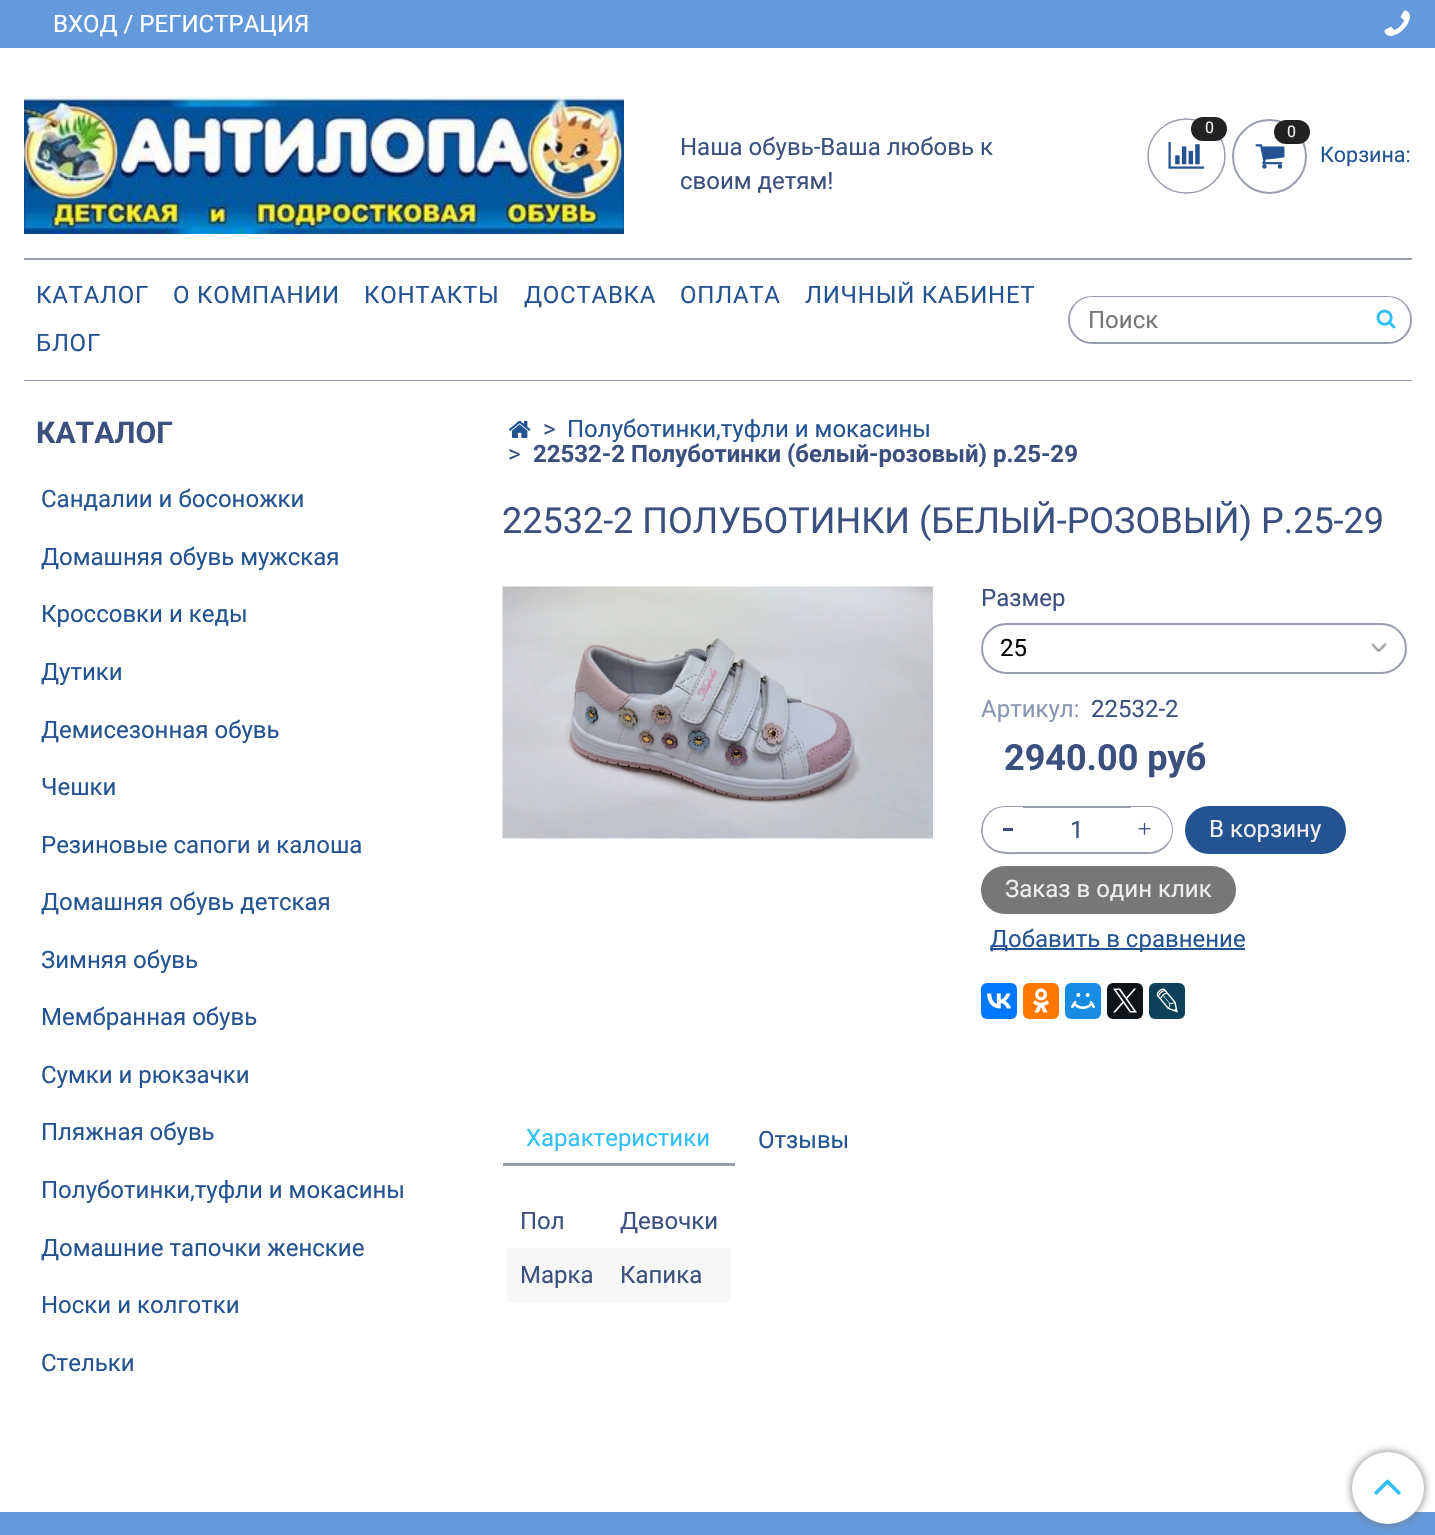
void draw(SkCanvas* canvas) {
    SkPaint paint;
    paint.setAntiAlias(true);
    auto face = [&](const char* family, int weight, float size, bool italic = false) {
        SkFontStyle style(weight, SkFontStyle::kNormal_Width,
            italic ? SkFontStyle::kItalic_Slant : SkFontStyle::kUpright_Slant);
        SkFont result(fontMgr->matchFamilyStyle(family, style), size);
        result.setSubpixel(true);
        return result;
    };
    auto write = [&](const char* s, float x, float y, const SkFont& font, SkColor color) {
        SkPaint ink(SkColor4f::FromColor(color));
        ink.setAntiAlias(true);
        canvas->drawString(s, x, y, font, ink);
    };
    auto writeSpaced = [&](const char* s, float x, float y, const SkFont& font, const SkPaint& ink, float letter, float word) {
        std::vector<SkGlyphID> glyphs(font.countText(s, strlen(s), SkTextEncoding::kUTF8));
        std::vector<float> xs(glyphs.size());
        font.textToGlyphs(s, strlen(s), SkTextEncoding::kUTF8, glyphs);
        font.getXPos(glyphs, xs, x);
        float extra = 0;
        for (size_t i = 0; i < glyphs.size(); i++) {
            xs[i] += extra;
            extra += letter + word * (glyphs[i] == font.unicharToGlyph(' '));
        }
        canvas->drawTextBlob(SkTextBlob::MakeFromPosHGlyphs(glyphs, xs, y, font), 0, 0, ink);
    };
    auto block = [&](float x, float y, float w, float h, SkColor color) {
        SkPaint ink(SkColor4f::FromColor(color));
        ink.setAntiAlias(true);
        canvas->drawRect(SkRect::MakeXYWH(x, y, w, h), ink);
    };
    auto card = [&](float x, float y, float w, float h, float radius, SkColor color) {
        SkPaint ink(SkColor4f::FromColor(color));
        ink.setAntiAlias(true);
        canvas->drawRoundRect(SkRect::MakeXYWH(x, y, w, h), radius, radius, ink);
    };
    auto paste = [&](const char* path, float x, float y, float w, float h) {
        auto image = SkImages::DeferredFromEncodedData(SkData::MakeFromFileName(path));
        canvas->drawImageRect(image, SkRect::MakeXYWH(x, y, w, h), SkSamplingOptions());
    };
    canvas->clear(SK_ColorWHITE);
    block(0, 0, 1435, 48, SkColorSetRGB(100, 154, 220));
    auto kFont1 = face("Roboto", 400, 24);
    write("ВХОД / РЕГИСТРАЦИЯ", 53, 32, kFont1, SK_ColorWHITE);
    paste("pic1.png", 1384, 10, 26, 26);
    paste("pic2.png", 24, 96, 600, 138);
    write("Наша обувь-Ваша любовь к", 680, 155, kFont1, SkColorSetRGB(59, 80, 126));
    write("своим детям!", 680, 189, kFont1, SkColorSetRGB(59, 80, 126));
    paint.setStyle(SkPaint::kStroke_Style);
    paint.setStrokeWidth(1.5f);
    paint.setColor(SkColorSetRGB(153, 158, 175));
    canvas->drawPath(SkPathBuilder().moveTo(1186.5f, 119).cubicTo(1207.5f, 119, 1225, 135.5f, 1225, 156).cubicTo(1225, 176.5f, 1207.5f, 193, 1186.5f, 193).cubicTo(1165.5f, 193, 1148, 176.5f, 1148, 156).cubicTo(1148, 135.5f, 1165.5f, 119, 1186.5f, 119).close().detach(), paint);
    card(1191, 117, 36, 24, 12, SkColorSetRGB(34, 34, 34));
    auto kFont2 = face("Roboto", 400, 16);
    write("0", 1205, 133, kFont2, SkColorSetRGB(238, 238, 238));
    paste("pic3.png", 1168, 142, 37, 27);
    paint.setStrokeWidth(2);
    canvas->drawCircle(1269.5f, 156.5f, 36.5f, paint);
    card(1274, 120, 36, 24, 12, SkColorSetRGB(34, 34, 34));
    write("0", 1287, 137, kFont2, SkColorSetRGB(238, 238, 238));
    paste("pic4.png", 1255, 144, 30, 25);
    auto kFont3 = face("Roboto", 400, 21.5f);
    write("Корзина:", 1320, 162, kFont3, SkColorSetRGB(36, 83, 145));
    block(24, 258, 1388, 2, SkColorSetRGB(153, 158, 175));
    block(24, 380, 1388, 1, SkColorSetRGB(153, 158, 175));
    paint.setStyle(SkPaint::kFill_Style);
    paint.setColor(SkColorSetRGB(36, 83, 145));
    writeSpaced("КАТАЛОГ", 36, 303, kFont1, paint, 0.75f, 0);
    writeSpaced("О КОМПАНИИ", 173, 303, kFont1, paint, 0.75f, 0);
    writeSpaced("КОНТАКТЫ", 364, 303, kFont1, paint, 0.75f, 0);
    writeSpaced("ДОСТАВКА", 524, 303, kFont1, paint, 0.75f, 0);
    writeSpaced("ОПЛАТА", 680, 303, kFont1, paint, 0.75f, 0);
    writeSpaced("ЛИЧНЫЙ КАБИНЕТ", 805, 303, kFont1, paint, 0.75f, 0);
    writeSpaced("БЛОГ", 36, 351, kFont1, paint, 0.75f, 0);
    paint.setStyle(SkPaint::kStroke_Style);
    paint.setColor(SkColorSetRGB(153, 158, 175));
    canvas->drawRoundRect(SkRect::MakeXYWH(1069, 297, 342, 46), 23, 23, paint);
    paint.setStyle(SkPaint::kFill_Style);
    paint.setColor(SK_ColorWHITE);
    canvas->drawPath(SkPathBuilder().moveTo(1092.5f, 297).lineTo(1362, 297).lineTo(1362, 342).lineTo(1092.5f, 342).cubicTo(1080, 342, 1070, 332, 1070, 319.5f).cubicTo(1070, 307, 1080, 297, 1092.5f, 297).close().detach(), paint);
    write("Поиск", 1088, 328, kFont1, SkColorSetRGB(117, 117, 117));
    canvas->drawPath(SkPathBuilder().moveTo(1362, 297).lineTo(1387.5f, 297).cubicTo(1400, 297, 1410, 307, 1410, 319.5f).cubicTo(1410, 332, 1400, 342, 1387.5f, 342).lineTo(1362, 342).close().detach(), paint);
    paste("pic5.png", 1376, 309, 20, 20);
    auto kFont4 = face("Roboto", 700, 30);
    write("КАТАЛОГ", 36, 443, kFont4, SkColorSetRGB(59, 80, 126));
    write("Сандалии и босоножки", 41, 507, kFont1, SkColorSetRGB(36, 83, 145));
    write("Домашняя обувь мужская", 41, 565, kFont1, SkColorSetRGB(36, 83, 145));
    write("Кроссовки и кеды", 41, 622, kFont1, SkColorSetRGB(36, 83, 145));
    write("Дутики", 41, 680, kFont1, SkColorSetRGB(36, 83, 145));
    write("Демисезонная обувь", 41, 738, kFont1, SkColorSetRGB(36, 83, 145));
    write("Чешки", 41, 795, kFont1, SkColorSetRGB(36, 83, 145));
    write("Резиновые сапоги и калоша", 41, 853, kFont1, SkColorSetRGB(36, 83, 145));
    write("Домашняя обувь детская", 41, 910, kFont1, SkColorSetRGB(36, 83, 145));
    write("Зимняя обувь", 41, 968, kFont1, SkColorSetRGB(36, 83, 145));
    write("Мембранная обувь", 41, 1025, kFont1, SkColorSetRGB(36, 83, 145));
    write("Сумки и рюкзачки", 41, 1083, kFont1, SkColorSetRGB(36, 83, 145));
    write("Пляжная обувь", 41, 1140, kFont1, SkColorSetRGB(36, 83, 145));
    write("Полуботинки,туфли и мокасины", 41, 1198, kFont1, SkColorSetRGB(36, 83, 145));
    write("Домашние тапочки женские", 41, 1256, kFont1, SkColorSetRGB(36, 83, 145));
    write("Носки и колготки", 41, 1313, kFont1, SkColorSetRGB(36, 83, 145));
    write("Стельки", 41, 1371, kFont1, SkColorSetRGB(36, 83, 145));
    paste("pic6.png", 508, 420, 23, 18);
    write(">", 543, 437, kFont1, SkColorSetRGB(59, 80, 126));
    write("Полуботинки,туфли и мокасины", 567, 437, kFont1, SkColorSetRGB(36, 83, 145));
    write(">", 508, 462, kFont1, SkColorSetRGB(59, 80, 126));
    auto kFont5 = face("Roboto", 700, 24);
    write("22532-2 Полуботинки (белый-розовый) р.25-29", 533, 462, kFont5, SkColorSetRGB(59, 80, 126));
    auto kFont6 = face("Roboto", 400, 36);
    write("22532-2 ПОЛУБОТИНКИ (БЕЛЫЙ-РОЗОВЫЙ) Р.25-29", 502, 533, kFont6, SkColorSetRGB(59, 80, 126));
    paste("pic7.png", 502, 586, 431, 253);
    write("Размер", 981, 606, kFont1, SkColorSetRGB(59, 80, 126));
    paste("pic8.png", 1370, 643, 17, 10);
    paint.setStyle(SkPaint::kStroke_Style);
    paint.setColor(SkColorSetRGB(153, 158, 175));
    canvas->drawRoundRect(SkRect::MakeXYWH(982, 624, 424, 49), 24.5f, 24.5f, paint);
    write("25", 1000, 656, kFont1, SK_ColorBLACK);
    write("Артикул:", 981, 717, kFont1, SkColorSetRGB(137, 150, 178));
    write("22532-2", 1091, 717, kFont1, SkColorSetRGB(59, 80, 126));
    auto kFont7 = face("Roboto", 700, 36);
    write("2940.00 руб", 1004, 770, kFont7, SkColorSetRGB(59, 80, 126));
    paint.setStyle(SkPaint::kFill_Style);
    canvas->drawPath(SkPathBuilder(SkPathFillType::kEvenOdd).moveTo(1005, 806).lineTo(1023, 806).lineTo(1023, 854).cubicTo(1014, 854, 1004, 855, 996, 852).cubicTo(972, 842, 979, 806, 1005, 806).close().moveTo(1005, 807).lineTo(1023, 807).lineTo(1023, 852).cubicTo(1015, 852, 1004, 853, 996, 850).cubicTo(974, 841, 981, 807, 1005, 807).close().detach(), paint);
    block(1003, 828, 10, 3, SkColorSetRGB(59, 80, 126));
    block(1023, 806, 108, 2, SkColorSetRGB(153, 158, 175));
    block(1023, 852, 108, 2, SkColorSetRGB(153, 158, 175));
    write("1", 1070, 838, kFont1, SkColorSetRGB(59, 80, 126));
    canvas->drawPath(SkPathBuilder(SkPathFillType::kEvenOdd).moveTo(1131, 806).lineTo(1149, 806).cubicTo(1162, 806, 1173, 816, 1173, 830).cubicTo(1173, 843, 1162, 854, 1149, 854).lineTo(1131, 854).close().moveTo(1131, 807).lineTo(1149, 807).cubicTo(1161, 807, 1172, 817, 1172, 830).cubicTo(1172, 842, 1161, 852, 1149, 852).lineTo(1131, 852).close().detach(), paint);
    paste("pic9.png", 1138, 822, 13, 13);
    card(1185, 806, 161, 48, 24, SkColorSetRGB(36, 83, 145));
    write("В корзину", 1209, 837, kFont1, SkColorSetRGB(238, 238, 238));
    card(981, 866, 255, 48, 24, SkColorSetRGB(119, 119, 119));
    write("Заказ в один клик", 1005, 897, kFont1, SkColorSetRGB(238, 238, 238));
    block(990, 948, 255, 2, SkColorSetRGB(36, 83, 145));
    write("Добавить в сравнение", 990, 947, kFont1, SkColorSetRGB(36, 83, 145));
    card(981, 983, 36, 36, 6, SkColorSetRGB(0, 119, 255));
    paste("pic10.png", 987, 993, 24, 16);
    card(1023, 983, 36, 36, 6, SkColorSetRGB(255, 119, 0));
    paste("pic11.png", 1033, 988, 16, 25);
    card(1065, 983, 36, 36, 6, SkColorSetRGB(22, 141, 226));
    paste("pic12.png", 1071, 993, 24, 16);
    card(1107, 983, 36, 36, 6, SkColorSetRGB(15, 20, 25));
    paste("pic13.png", 1113, 988, 24, 25);
    card(1149, 983, 36, 36, 6, SkColorSetRGB(13, 66, 90));
    paste("pic14.png", 1156, 988, 22, 25);
    block(503, 1163, 232, 3, SkColorSetRGB(153, 158, 175));
    write("Характеристики", 526, 1146, kFont1, SkColorSetRGB(49, 191, 248));
    write("Отзывы", 758, 1148, kFont1, SkColorSetRGB(36, 83, 145));
    write("Пол", 520, 1229, kFont1, SkColorSetRGB(59, 80, 126));
    write("Девочки", 620, 1229, kFont1, SkColorSetRGB(59, 80, 126));
    block(507, 1248, 224, 54, SkColorSetRGB(247, 247, 247));
    write("Марка", 520, 1283, kFont1, SkColorSetRGB(59, 80, 126));
    write("Капика", 620, 1283, kFont1, SkColorSetRGB(59, 80, 126));
    block(0, 1512, 1435, 23, SkColorSetRGB(100, 154, 220));
    paint.setColor(SkColorSetRGB(119, 119, 119));
    paint.setMaskFilter(SkMaskFilter::MakeBlur(kNormal_SkBlurStyle, 4));
    canvas->drawRoundRect(SkRect::MakeXYWH(1352, 1452, 72, 72), 36, 36, paint);
    paint.setMaskFilter(nullptr);
    paint.setColor(SK_ColorWHITE);
    canvas->drawCircle(1388, 1488, 36, paint);
    paste("pic15.png", 1374, 1479, 27, 16);
}
